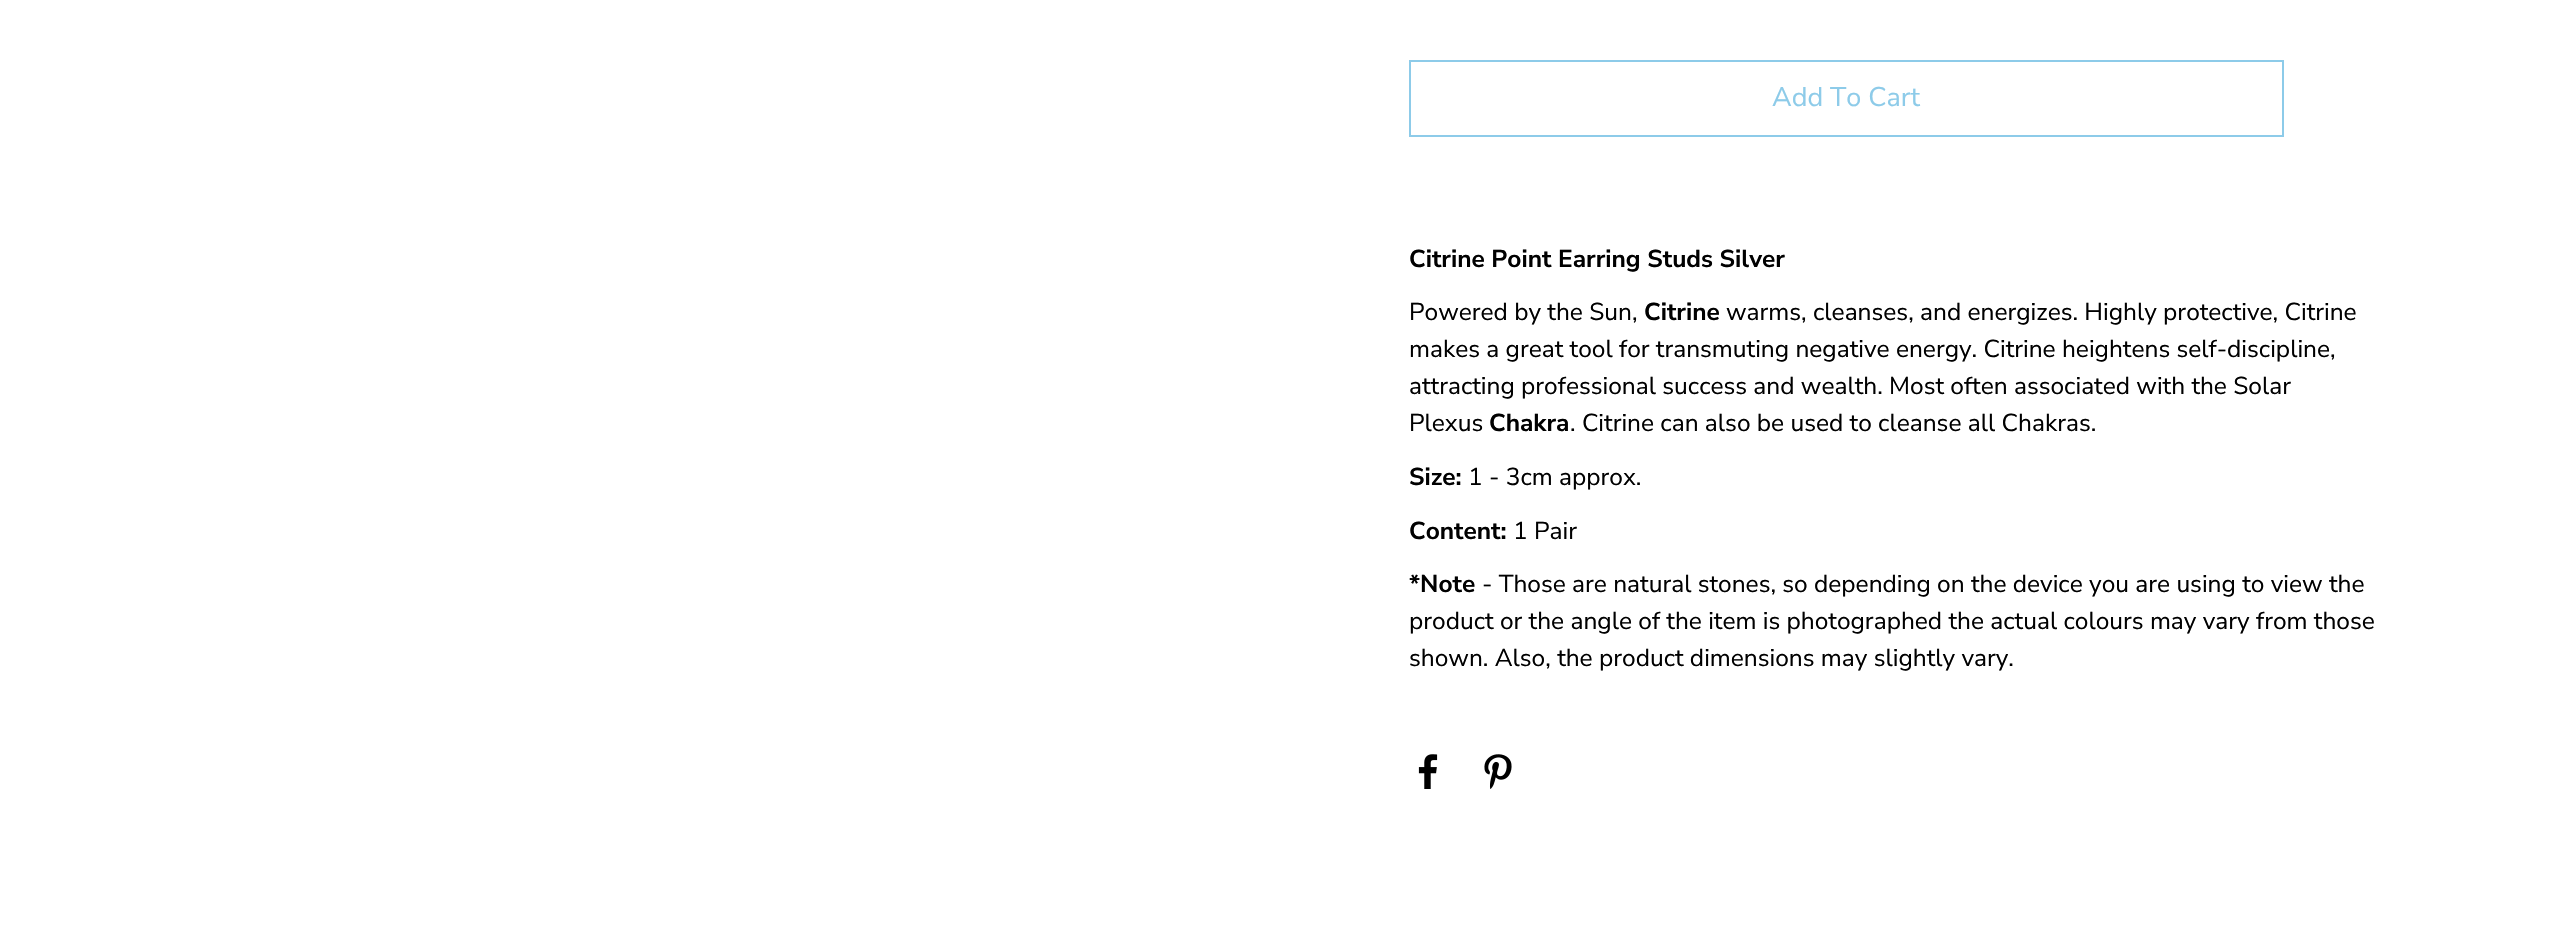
void draw(SkCanvas* canvas) {
    SkPaint paint;
    paint.setAntiAlias(true);
    auto face = [&](const char* family, int weight, float size, bool italic = false) {
        SkFontStyle style(weight, SkFontStyle::kNormal_Width,
            italic ? SkFontStyle::kItalic_Slant : SkFontStyle::kUpright_Slant);
        SkFont result(fontMgr->matchFamilyStyle(family, style), size);
        result.setSubpixel(true);
        return result;
    };
    auto write = [&](const char* s, float x, float y, const SkFont& font, SkColor color) {
        SkPaint ink(SkColor4f::FromColor(color));
        ink.setAntiAlias(true);
        canvas->drawString(s, x, y, font, ink);
    };
    auto paste = [&](const char* path, float x, float y, float w, float h) {
        auto image = SkImages::DeferredFromEncodedData(SkData::MakeFromFileName(path));
        canvas->drawImageRect(image, SkRect::MakeXYWH(x, y, w, h), SkSamplingOptions());
    };
    canvas->clear(SK_ColorWHITE);
    paint.setStyle(SkPaint::kStroke_Style);
    paint.setStrokeWidth(2);
    paint.setColor(SkColorSetRGB(141, 203, 233));
    canvas->drawRect(SkRect::MakeXYWH(1410, 61, 873, 75), paint);
    auto kFont1 = face("Nunito Sans", 400, 27);
    write("Add To Cart", 1772, 106, kFont1, SkColorSetRGB(141, 203, 233));
    auto kFont2 = face("Nunito Sans", 700, 24.5f);
    write("Citrine Point Earring Studs Silver", 1409, 267, kFont2, SK_ColorBLACK);
    auto kFont3 = face("Nunito Sans", 400, 24.5f);
    write("Powered by the Sun,", 1409, 320, kFont3, SK_ColorBLACK);
    write("Citrine", 1644, 320, kFont2, SK_ColorBLACK);
    write("warms, cleanses, and energizes. Highly protective, Citrine", 1726, 320, kFont3, SK_ColorBLACK);
    write("makes a great tool for transmuting negative energy. Citrine heightens self-discipline,", 1409, 357, kFont3, SK_ColorBLACK);
    write("attracting professional success and wealth. Most often associated with the Solar", 1409, 394, kFont3, SK_ColorBLACK);
    write("Plexus", 1409, 431, kFont3, SK_ColorBLACK);
    write("Chakra", 1489, 431, kFont2, SK_ColorBLACK);
    write(". Citrine can also be used to cleanse all Chakras.", 1570, 431, kFont3, SK_ColorBLACK);
    write("Size:", 1409, 485, kFont2, SK_ColorBLACK);
    write("1 - 3cm approx.", 1468, 485, kFont3, SK_ColorBLACK);
    write("Content:", 1409, 539, kFont2, SK_ColorBLACK);
    write("1 Pair", 1513, 539, kFont3, SK_ColorBLACK);
    write("*Note", 1409, 592, kFont2, SK_ColorBLACK);
    write("- Those are natural stones, so depending on the device you are using to view the", 1482, 592, kFont3, SK_ColorBLACK);
    write("product or the angle of the item is photographed the actual colours may vary from those", 1409, 629, kFont3, SK_ColorBLACK);
    write("shown. Also, the product dimensions may slightly vary.", 1409, 666, kFont3, SK_ColorBLACK);
    paste("pic1.png", 1418, 754, 20, 35);
    paste("pic2.png", 1484, 754, 28, 35);
}
